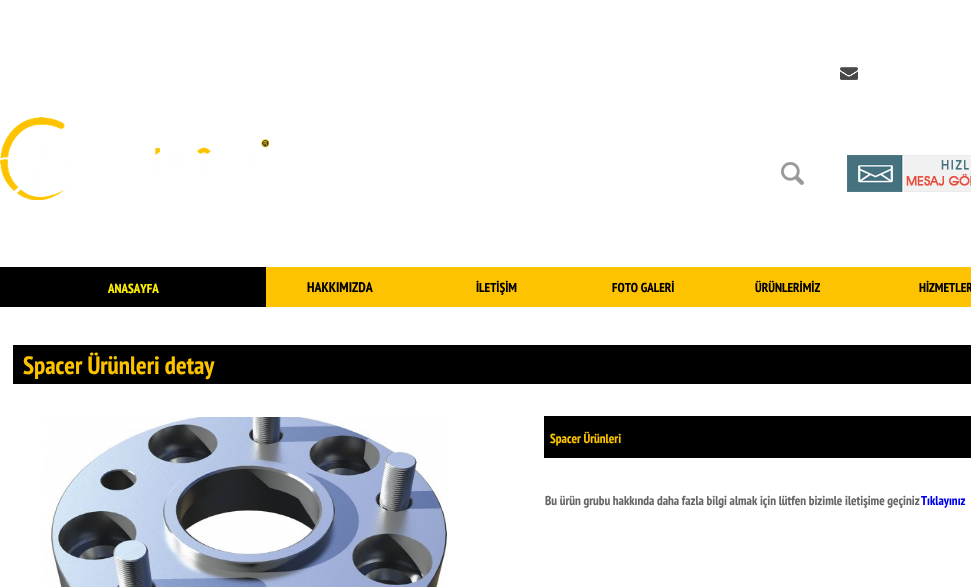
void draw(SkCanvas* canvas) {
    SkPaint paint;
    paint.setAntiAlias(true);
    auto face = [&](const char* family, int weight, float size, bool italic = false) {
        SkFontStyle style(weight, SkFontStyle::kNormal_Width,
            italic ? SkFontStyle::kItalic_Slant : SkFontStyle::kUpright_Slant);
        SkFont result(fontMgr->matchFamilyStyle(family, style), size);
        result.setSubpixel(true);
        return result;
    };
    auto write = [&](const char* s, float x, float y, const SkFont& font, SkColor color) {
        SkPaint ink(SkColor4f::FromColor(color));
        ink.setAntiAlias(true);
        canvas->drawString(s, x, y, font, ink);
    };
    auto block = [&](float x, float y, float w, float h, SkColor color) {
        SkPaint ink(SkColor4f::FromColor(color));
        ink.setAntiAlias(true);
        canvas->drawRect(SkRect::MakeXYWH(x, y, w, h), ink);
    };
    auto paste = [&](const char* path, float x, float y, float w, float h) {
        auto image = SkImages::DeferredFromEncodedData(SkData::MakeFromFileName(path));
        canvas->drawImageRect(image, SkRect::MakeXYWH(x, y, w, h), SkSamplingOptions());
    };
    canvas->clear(SK_ColorWHITE);
    paste("pic1.png", 840, 67, 18, 13);
    paste("pic2.png", 0, 117, 269, 83);
    paste("pic3.png", 781, 162, 23, 23);
    paste("pic4.png", 847, 155, 124, 37);
    block(0, 267, 266, 40, SK_ColorBLACK);
    auto kFont1 = face("PT Sans Narrow", 700, 13);
    write("ANASAYFA", 108, 293, kFont1, SkColorSetRGB(255, 240, 0));
    block(266, 267, 705, 40, SkColorSetRGB(253, 195, 0));
    auto kFont2 = face("PT Sans Narrow", 700, 14);
    write("HAKKIMIZDA", 307, 292, kFont2, SK_ColorBLACK);
    write("İLETİŞİM", 476, 292, kFont1, SK_ColorBLACK);
    write("FOTO GALERİ", 612, 292, kFont1, SK_ColorBLACK);
    write("ÜRÜNLERİMİZ", 755, 292, kFont1, SK_ColorBLACK);
    write("HİZMETLER", 919, 292, kFont1, SK_ColorBLACK);
    block(13, 345, 958, 39, SK_ColorBLACK);
    auto kFont3 = face("PT Sans Narrow", 700, 25);
    write("Spacer Ürünleri detay", 23, 374, kFont3, SkColorSetRGB(253, 195, 0));
    paste("pic5.png", 44, 417, 405, 170);
    block(544, 416, 427, 42, SK_ColorBLACK);
    write("Spacer Ürünleri", 550, 443, kFont1, SkColorSetRGB(253, 195, 0));
    auto kFont4 = face("PT Sans Narrow", 700, 12.9f);
    write("Bu ürün grubu hakkında daha fazla bilgi almak için lütfen bizimle iletişime geçiniz", 545, 505, kFont4, SkColorSetRGB(102, 102, 102));
    write("Tıklayınız", 921, 505, kFont4, SkColorSetRGB(0, 0, 238));
}
